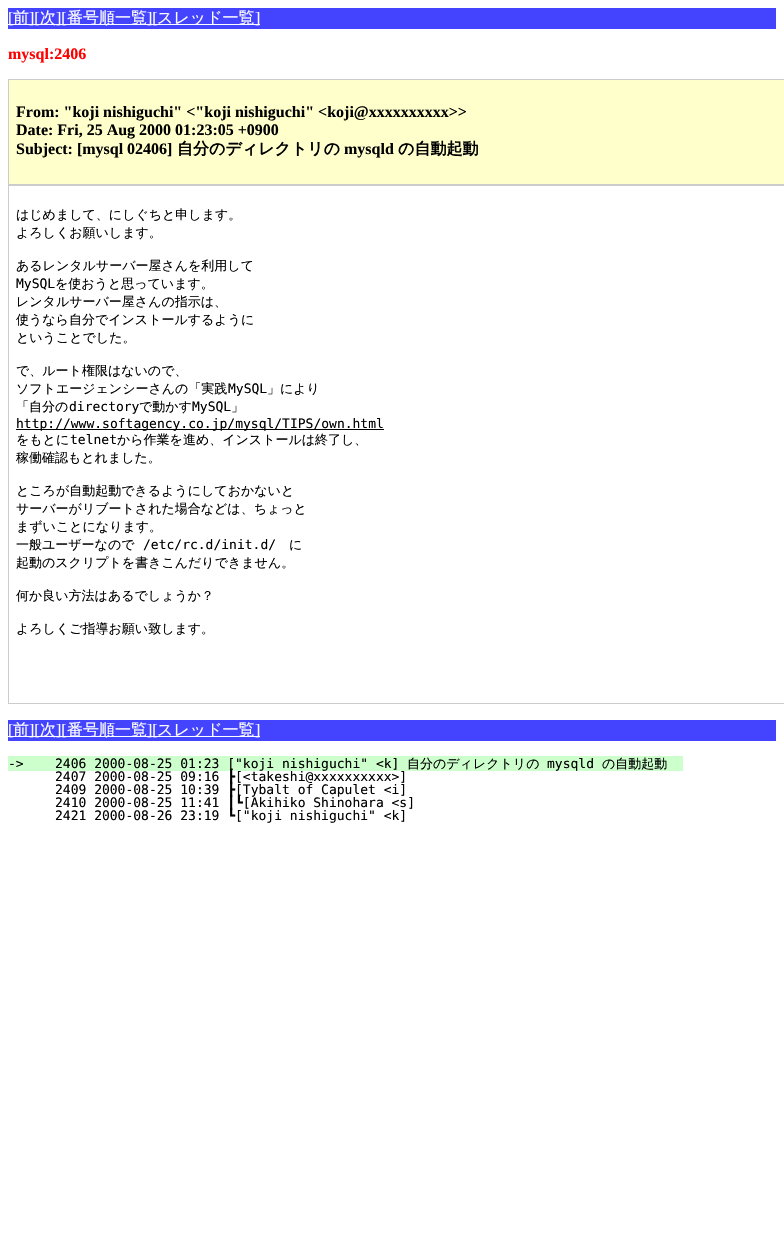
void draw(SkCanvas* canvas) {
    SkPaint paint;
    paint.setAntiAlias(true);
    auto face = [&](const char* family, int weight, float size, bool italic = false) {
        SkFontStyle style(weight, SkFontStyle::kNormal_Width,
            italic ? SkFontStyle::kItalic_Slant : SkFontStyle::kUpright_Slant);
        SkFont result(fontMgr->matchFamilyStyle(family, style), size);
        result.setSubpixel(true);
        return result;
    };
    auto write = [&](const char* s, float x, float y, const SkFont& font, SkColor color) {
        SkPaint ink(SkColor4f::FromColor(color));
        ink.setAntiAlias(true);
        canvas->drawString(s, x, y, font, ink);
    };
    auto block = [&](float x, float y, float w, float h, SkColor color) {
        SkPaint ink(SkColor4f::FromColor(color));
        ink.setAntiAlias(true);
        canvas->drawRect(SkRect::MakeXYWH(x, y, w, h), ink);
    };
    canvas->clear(SK_ColorWHITE);
    block(8, 8, 768, 21, SkColorSetRGB(68, 68, 255));
    block(8, 24, 252, 1, SK_ColorWHITE);
    auto kFont1 = face("Liberation Serif", 400, 16);
    write("[", 8, 23, kFont1, SK_ColorWHITE);
    auto kFont2 = face("WenQuanYi Zen Hei", 500, 16);
    write("前", 13, 23, kFont2, SK_ColorWHITE);
    write("][", 29, 23, kFont1, SK_ColorWHITE);
    write("次", 40, 23, kFont2, SK_ColorWHITE);
    write("][", 56, 23, kFont1, SK_ColorWHITE);
    write("番号順一覧", 67, 23, kFont2, SK_ColorWHITE);
    write("][", 147, 23, kFont1, SK_ColorWHITE);
    write("スレッド一覧", 157, 23, kFont2, SK_ColorWHITE);
    write("]", 255, 23, kFont1, SK_ColorWHITE);
    auto kFont3 = face("Liberation Serif", 700, 16);
    write("mysql:2406", 8, 59, kFont3, SkColorSetRGB(255, 0, 0));
    paint.setColor(SkColorSetRGB(255, 255, 204));
    canvas->drawRect(SkRect::MakeXYWH(8.5f, 79.5f, 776, 105), paint);
    paint.setStyle(SkPaint::kStroke_Style);
    paint.setStrokeWidth(1);
    paint.setColor(SkColorSetRGB(204, 204, 204));
    canvas->drawRect(SkRect::MakeXYWH(8.5f, 79.5f, 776, 105), paint);
    write("From: \"koji nishiguchi\" <\"koji nishiguchi\" <koji@xxxxxxxxxx>>", 16, 117, kFont3, SK_ColorBLACK);
    write("Date: Fri, 25 Aug 2000 01:23:05 +0900", 16, 135, kFont3, SK_ColorBLACK);
    write("Subject: [mysql 02406]", 16, 154, kFont3, SK_ColorBLACK);
    auto kFont4 = face("WenQuanYi Zen Hei", 700, 16);
    write("自分のディレクトリの", 177, 154, kFont4, SK_ColorBLACK);
    write("mysqld", 344, 154, kFont3, SK_ColorBLACK);
    write("の自動起動", 398, 154, kFont4, SK_ColorBLACK);
    canvas->drawRect(SkRect::MakeXYWH(8.5f, 185.5f, 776, 518), paint);
    auto kFont5 = face("WenQuanYi Zen Hei", 500, 13);
    write("はじめまして、にしぐちと申します。", 16, 219, kFont5, SK_ColorBLACK);
    write("よろしくお願いします。", 16, 237, kFont5, SK_ColorBLACK);
    write("あるレンタルサーバー屋さんを利用して", 16, 270, kFont5, SK_ColorBLACK);
    auto kFont6 = face("DejaVu Sans Mono", 400, 13);
    write("MySQL", 16, 288, kFont6, SK_ColorBLACK);
    write("を使おうと思っています。", 55, 288, kFont5, SK_ColorBLACK);
    write("レンタルサーバー屋さんの指示は、", 16, 306, kFont5, SK_ColorBLACK);
    write("使うなら自分でインストールするように", 16, 324, kFont5, SK_ColorBLACK);
    write("ということでした。", 16, 342, kFont5, SK_ColorBLACK);
    write("で、ルート権限はないので、", 16, 375, kFont5, SK_ColorBLACK);
    write("ソフトエージェンシーさんの「実践", 16, 393, kFont5, SK_ColorBLACK);
    write("MySQL", 228, 393, kFont6, SK_ColorBLACK);
    write("」により", 267, 393, kFont5, SK_ColorBLACK);
    write("「自分の", 16, 411, kFont5, SK_ColorBLACK);
    write("directory", 69, 411, kFont6, SK_ColorBLACK);
    write("で動かす", 139, 411, kFont5, SK_ColorBLACK);
    write("MySQL", 192, 411, kFont6, SK_ColorBLACK);
    write("」", 231, 411, kFont5, SK_ColorBLACK);
    block(16, 429, 368, 1, SK_ColorBLACK);
    write("http://www.softagency.co.jp/mysql/TIPS/own.html", 16, 428, kFont6, SK_ColorBLACK);
    write("をもとに", 16, 444, kFont5, SK_ColorBLACK);
    write("telnet", 70, 444, kFont6, SK_ColorBLACK);
    write("から作業を進め、インストールは終了し、", 117, 444, kFont5, SK_ColorBLACK);
    write("稼働確認もとれました。", 16, 462, kFont5, SK_ColorBLACK);
    write("ところが自動起動できるようにしておかないと", 16, 495, kFont5, SK_ColorBLACK);
    write("サーバーがリブートされた場合などは、ちょっと", 16, 513, kFont5, SK_ColorBLACK);
    write("まずいことになります。", 16, 531, kFont5, SK_ColorBLACK);
    write("一般ユーザーなので", 16, 549, kFont5, SK_ColorBLACK);
    write("/etc/rc.d/init.d/", 143, 549, kFont6, SK_ColorBLACK);
    write("に", 289, 549, kFont5, SK_ColorBLACK);
    write("起動のスクリプトを書きこんだりできません。", 16, 567, kFont5, SK_ColorBLACK);
    write("何か良い方法はあるでしょうか？", 16, 600, kFont5, SK_ColorBLACK);
    write("よろしくご指導お願い致します。", 16, 633, kFont5, SK_ColorBLACK);
    block(8, 720, 768, 21, SkColorSetRGB(68, 68, 255));
    block(8, 736, 252, 1, SK_ColorWHITE);
    write("[", 8, 735, kFont1, SK_ColorWHITE);
    write("前", 13, 735, kFont2, SK_ColorWHITE);
    write("][", 29, 735, kFont1, SK_ColorWHITE);
    write("次", 40, 735, kFont2, SK_ColorWHITE);
    write("][", 56, 735, kFont1, SK_ColorWHITE);
    write("番号順一覧", 67, 735, kFont2, SK_ColorWHITE);
    write("][", 147, 735, kFont1, SK_ColorWHITE);
    write("スレッド一覧", 157, 735, kFont2, SK_ColorWHITE);
    write("]", 255, 735, kFont1, SK_ColorWHITE);
    block(8, 756, 675, 15, SkColorSetRGB(204, 255, 204));
    write("->", 8, 768, kFont6, SK_ColorBLACK);
    write("2406 2000-08-25 01:23 [\"koji nishiguchi\" <k]", 55, 768, kFont6, SK_ColorBLACK);
    write("自分のディレクトリの", 407, 768, kFont5, SK_ColorBLACK);
    write("mysqld", 547, 768, kFont6, SK_ColorBLACK);
    write("の自動起動", 602, 768, kFont5, SK_ColorBLACK);
    write("2407 2000-08-25 09:16 ┣[<takeshi@xxxxxxxxxx>]", 55, 781, kFont6, SK_ColorBLACK);
    write("2409 2000-08-25 10:39 ┣[Tybalt of Capulet <i]", 55, 794, kFont6, SK_ColorBLACK);
    write("2410 2000-08-25 11:41 ┃┗[Akihiko Shinohara <s]", 55, 807, kFont6, SK_ColorBLACK);
    write("2421 2000-08-26 23:19 ┗[\"koji nishiguchi\" <k]", 55, 820, kFont6, SK_ColorBLACK);
}
